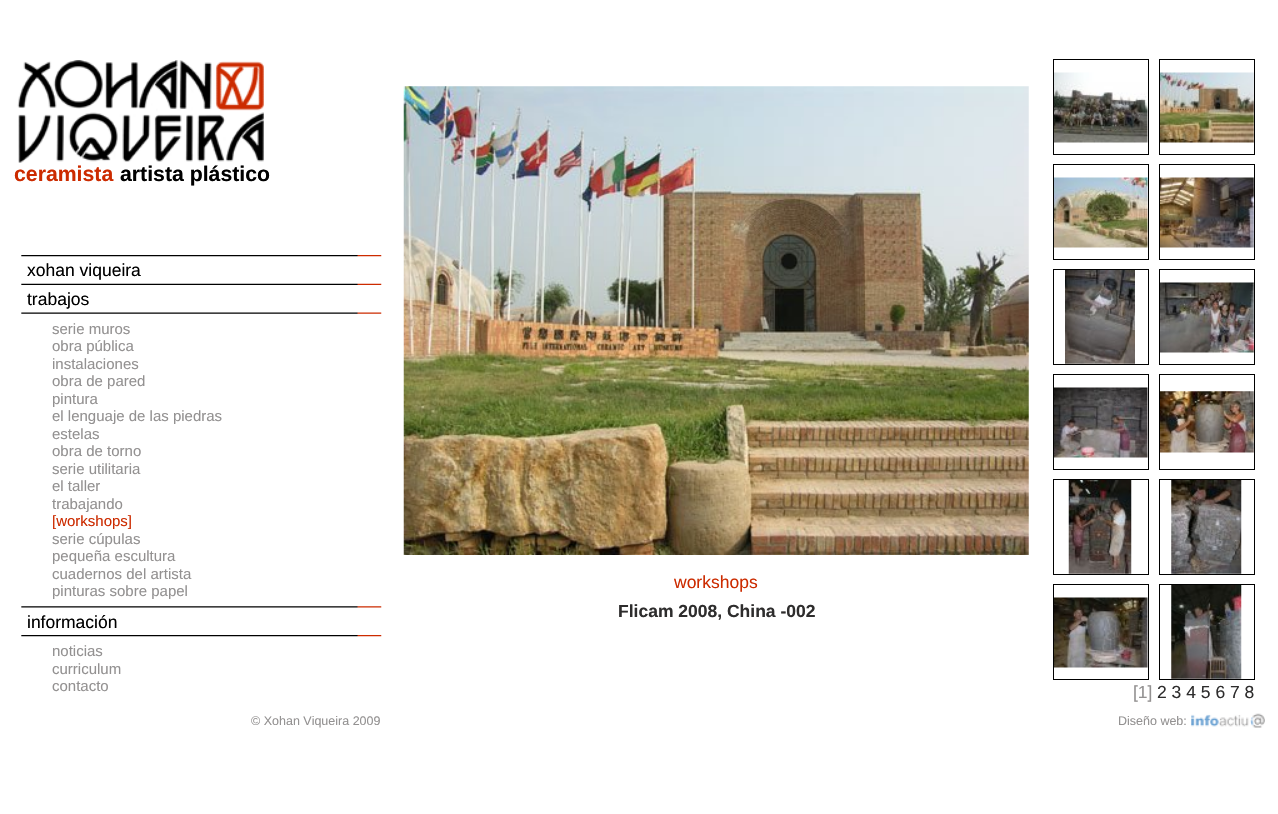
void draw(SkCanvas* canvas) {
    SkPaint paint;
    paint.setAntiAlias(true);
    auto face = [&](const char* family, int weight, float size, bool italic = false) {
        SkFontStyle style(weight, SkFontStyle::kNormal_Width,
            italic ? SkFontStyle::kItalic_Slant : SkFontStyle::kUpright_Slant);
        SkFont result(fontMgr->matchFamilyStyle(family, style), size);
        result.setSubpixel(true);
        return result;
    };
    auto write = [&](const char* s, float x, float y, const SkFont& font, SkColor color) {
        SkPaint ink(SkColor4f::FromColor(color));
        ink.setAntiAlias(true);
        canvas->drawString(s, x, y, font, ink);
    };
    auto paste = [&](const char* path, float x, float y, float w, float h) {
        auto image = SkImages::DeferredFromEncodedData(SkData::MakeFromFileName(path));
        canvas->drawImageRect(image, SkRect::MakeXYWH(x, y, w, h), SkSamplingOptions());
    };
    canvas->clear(SK_ColorWHITE);
    paste("pic1.png", 17, 60, 247, 103);
    auto kFont1 = face("Liberation Sans", 700, 21.25f);
    write("ceramista", 14, 181, kFont1, SkColorSetRGB(204, 43, 0));
    write("artista plástico", 120, 181, kFont1, SK_ColorBLACK);
    paste("pic2.png", 21, 255, 361, 2);
    auto kFont2 = face("Liberation Sans", 400, 17.5f);
    write("xohan viqueira", 27, 276, kFont2, SK_ColorBLACK);
    paste("pic3.png", 21, 283, 361, 2);
    write("trabajos", 27, 305, kFont2, SK_ColorBLACK);
    paste("pic4.png", 21, 312, 361, 2);
    auto kFont3 = face("Liberation Sans", 400, 15);
    write("serie muros", 52, 334, kFont3, SkColorSetRGB(147, 145, 145));
    write("obra pública", 52, 351, kFont3, SkColorSetRGB(147, 145, 145));
    write("instalaciones", 52, 369, kFont3, SkColorSetRGB(147, 145, 145));
    write("obra de pared", 52, 386, kFont3, SkColorSetRGB(147, 145, 145));
    write("pintura", 52, 404, kFont3, SkColorSetRGB(147, 145, 145));
    write("el lenguaje de las piedras", 52, 421, kFont3, SkColorSetRGB(147, 145, 145));
    write("estelas", 52, 439, kFont3, SkColorSetRGB(147, 145, 145));
    write("obra de torno", 52, 456, kFont3, SkColorSetRGB(147, 145, 145));
    write("serie utilitaria", 52, 474, kFont3, SkColorSetRGB(147, 145, 145));
    write("el taller", 52, 491, kFont3, SkColorSetRGB(147, 145, 145));
    write("trabajando", 52, 509, kFont3, SkColorSetRGB(147, 145, 145));
    write("[workshops]", 52, 526, kFont3, SkColorSetRGB(204, 43, 0));
    write("serie cúpulas", 52, 544, kFont3, SkColorSetRGB(147, 145, 145));
    write("pequeña escultura", 52, 561, kFont3, SkColorSetRGB(147, 145, 145));
    write("cuadernos del artista", 52, 579, kFont3, SkColorSetRGB(147, 145, 145));
    write("pinturas sobre papel", 52, 596, kFont3, SkColorSetRGB(147, 145, 145));
    paste("pic5.png", 21, 606, 361, 2);
    write("información", 27, 628, kFont2, SK_ColorBLACK);
    paste("pic2.png", 21, 635, 361, 2);
    write("noticias", 52, 656, kFont3, SkColorSetRGB(147, 145, 145));
    write("curriculum", 52, 674, kFont3, SkColorSetRGB(147, 145, 145));
    write("contacto", 52, 691, kFont3, SkColorSetRGB(147, 145, 145));
    paste("pic6.png", 403, 86, 626, 469);
    write("workshops", 674, 588, kFont2, SkColorSetRGB(204, 43, 0));
    auto kFont4 = face("Liberation Sans", 700, 17.5f);
    write("Flicam 2008, China -002", 618, 617, kFont4, SkColorSetRGB(46, 45, 45));
    paste("pic7.png", 1054, 72, 94, 71);
    paint.setStyle(SkPaint::kStroke_Style);
    paint.setStrokeWidth(1);
    paint.setColor(SK_ColorBLACK);
    canvas->drawRect(SkRect::MakeXYWH(1053.5f, 59.5f, 95, 95), paint);
    paste("pic8.png", 1160, 72, 94, 71);
    canvas->drawRect(SkRect::MakeXYWH(1159.5f, 59.5f, 95, 95), paint);
    paste("pic9.png", 1054, 177, 94, 71);
    canvas->drawRect(SkRect::MakeXYWH(1053.5f, 164.5f, 95, 95), paint);
    paste("pic10.png", 1160, 177, 94, 71);
    canvas->drawRect(SkRect::MakeXYWH(1159.5f, 164.5f, 95, 95), paint);
    paste("pic11.png", 1065, 270, 70, 94);
    canvas->drawRect(SkRect::MakeXYWH(1053.5f, 269.5f, 95, 95), paint);
    paste("pic12.png", 1160, 282, 94, 71);
    canvas->drawRect(SkRect::MakeXYWH(1159.5f, 269.5f, 95, 95), paint);
    paste("pic13.png", 1054, 387, 94, 71);
    canvas->drawRect(SkRect::MakeXYWH(1053.5f, 374.5f, 95, 95), paint);
    paste("pic14.png", 1160, 391, 94, 62);
    canvas->drawRect(SkRect::MakeXYWH(1159.5f, 374.5f, 95, 95), paint);
    paste("pic15.png", 1068, 480, 64, 94);
    canvas->drawRect(SkRect::MakeXYWH(1053.5f, 479.5f, 95, 95), paint);
    paste("pic16.png", 1171, 480, 71, 94);
    canvas->drawRect(SkRect::MakeXYWH(1159.5f, 479.5f, 95, 95), paint);
    paste("pic17.png", 1054, 597, 94, 71);
    canvas->drawRect(SkRect::MakeXYWH(1053.5f, 584.5f, 95, 95), paint);
    paste("pic18.png", 1171, 585, 71, 94);
    canvas->drawRect(SkRect::MakeXYWH(1159.5f, 584.5f, 95, 95), paint);
    write("[1]", 1133, 698, kFont2, SkColorSetRGB(147, 145, 145));
    write("2 3 4 5 6 7 8", 1157, 698, kFont2, SkColorSetRGB(46, 45, 45));
    auto kFont5 = face("Liberation Sans", 400, 12.5f);
    write("© Xohan Viqueira 2009", 251, 725, kFont5, SkColorSetRGB(147, 145, 145));
    write("Diseño web:", 1118, 725, kFont5, SkColorSetRGB(147, 145, 145));
    paste("pic19.png", 1191, 713, 74, 15);
}
